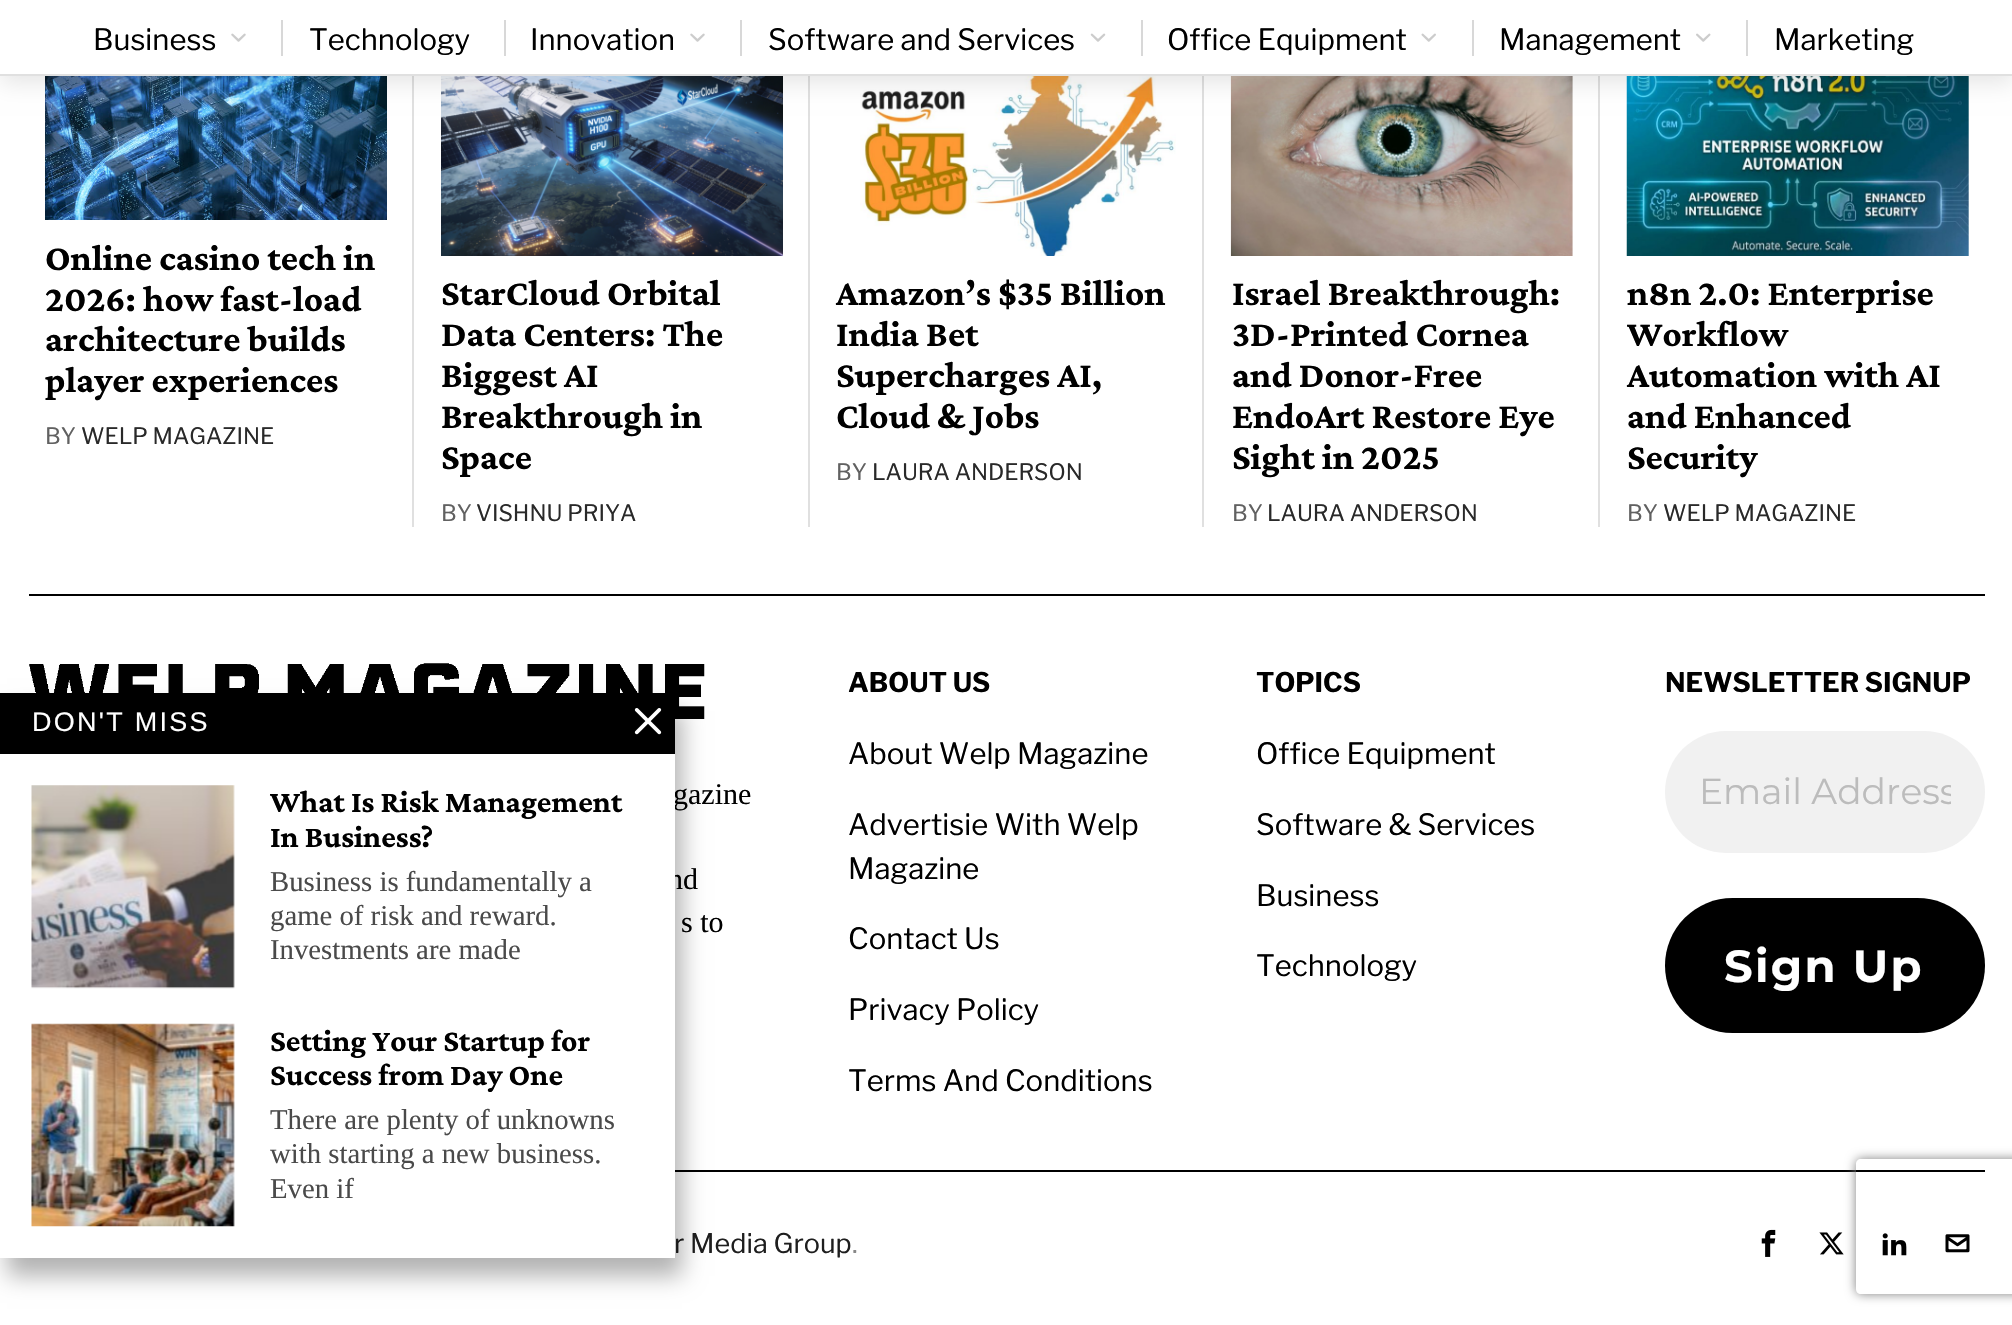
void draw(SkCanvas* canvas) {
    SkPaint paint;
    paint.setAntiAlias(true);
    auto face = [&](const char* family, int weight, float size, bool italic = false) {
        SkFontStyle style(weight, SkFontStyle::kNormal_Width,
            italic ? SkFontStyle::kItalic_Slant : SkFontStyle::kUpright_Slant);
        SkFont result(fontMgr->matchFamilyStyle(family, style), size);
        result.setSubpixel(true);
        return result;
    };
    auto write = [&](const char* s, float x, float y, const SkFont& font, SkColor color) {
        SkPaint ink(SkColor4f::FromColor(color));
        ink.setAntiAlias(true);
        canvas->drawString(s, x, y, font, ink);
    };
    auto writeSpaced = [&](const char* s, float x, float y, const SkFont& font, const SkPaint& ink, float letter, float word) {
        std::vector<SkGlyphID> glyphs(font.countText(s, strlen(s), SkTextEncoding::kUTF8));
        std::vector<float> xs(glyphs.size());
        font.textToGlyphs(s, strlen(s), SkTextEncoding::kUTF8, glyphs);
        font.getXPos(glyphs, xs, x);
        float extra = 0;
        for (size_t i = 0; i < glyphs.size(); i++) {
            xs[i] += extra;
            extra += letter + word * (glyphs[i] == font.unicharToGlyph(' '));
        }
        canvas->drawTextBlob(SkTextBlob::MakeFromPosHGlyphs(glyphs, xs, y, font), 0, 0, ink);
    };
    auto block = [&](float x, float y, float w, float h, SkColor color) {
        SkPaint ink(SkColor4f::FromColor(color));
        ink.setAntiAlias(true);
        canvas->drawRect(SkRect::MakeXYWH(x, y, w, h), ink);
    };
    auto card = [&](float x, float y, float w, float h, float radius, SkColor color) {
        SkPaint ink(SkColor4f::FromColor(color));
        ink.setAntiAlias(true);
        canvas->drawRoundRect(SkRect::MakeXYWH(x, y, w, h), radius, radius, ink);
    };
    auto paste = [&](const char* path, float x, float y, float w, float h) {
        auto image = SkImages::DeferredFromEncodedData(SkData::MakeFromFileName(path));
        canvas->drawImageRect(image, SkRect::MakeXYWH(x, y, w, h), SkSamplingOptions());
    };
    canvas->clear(SK_ColorWHITE);
    paste("pic5.png", 45, 76, 342, 144);
    block(412, 76, 2, 451, SkColorSetRGB(224, 224, 224));
    block(808, 76, 2, 451, SkColorSetRGB(224, 224, 224));
    block(1202, 76, 2, 451, SkColorSetRGB(224, 224, 224));
    block(1598, 76, 2, 451, SkColorSetRGB(224, 224, 224));
    paste("pic6.png", 441, 76, 342, 180);
    paste("pic7.png", 860, 76, 316, 180);
    paste("pic8.png", 1230, 76, 343, 180);
    paste("pic9.png", 1626, 76, 343, 180);
    paint.setColor(SkColorSetARGB(26, 0, 0, 0));
    paint.setMaskFilter(SkMaskFilter::MakeBlur(kNormal_SkBlurStyle, 11));
    canvas->drawRect(SkRect::MakeXYWH(0, 7, 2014, 76), paint);
    paint.setMaskFilter(nullptr);
    block(0, 0, 2012, 74, SK_ColorWHITE);
    block(0, 74, 2012, 2, SkColorSetRGB(224, 224, 224));
    auto kFont1 = face("Libre Franklin", 400, 29.25f);
    write("Business", 93, 50, kFont1, SK_ColorBLACK);
    paste("pic1.png", 231, 33, 15, 9);
    block(281, 20, 2, 36, SkColorSetRGB(216, 216, 216));
    write("Technology", 309, 50, kFont1, SK_ColorBLACK);
    block(504, 20, 2, 36, SkColorSetRGB(216, 216, 216));
    write("Innovation", 530, 50, kFont1, SK_ColorBLACK);
    paste("pic1.png", 690, 33, 15, 9);
    block(740, 20, 2, 36, SkColorSetRGB(216, 216, 216));
    write("Software and Services", 768, 50, kFont1, SK_ColorBLACK);
    paste("pic2.png", 1090, 33, 16, 9);
    block(1141, 20, 2, 36, SkColorSetRGB(216, 216, 216));
    write("Office Equipment", 1167, 50, kFont1, SK_ColorBLACK);
    paste("pic3.png", 1421, 33, 15, 9);
    block(1472, 20, 2, 36, SkColorSetRGB(216, 216, 216));
    write("Management", 1499, 50, kFont1, SK_ColorBLACK);
    paste("pic4.png", 1696, 33, 15, 9);
    block(1746, 20, 2, 36, SkColorSetRGB(216, 216, 216));
    write("Marketing", 1774, 50, kFont1, SK_ColorBLACK);
    auto kFont2 = face("Crimson Pro", 700, 37.1f);
    write("Online casino tech in", 45, 270, kFont2, SK_ColorBLACK);
    write("2026: how fast-load", 45, 311, kFont2, SK_ColorBLACK);
    write("architecture builds", 45, 351, kFont2, SK_ColorBLACK);
    write("player experiences", 45, 392, kFont2, SK_ColorBLACK);
    auto kFont3 = face("Libre Franklin", 400, 22.5f);
    write("BY", 45, 444, kFont3, SkColorSetRGB(97, 97, 97));
    write("WELP MAGAZINE", 81, 444, kFont3, SkColorSetRGB(41, 41, 41));
    write("StarCloud Orbital", 441, 305, kFont2, SK_ColorBLACK);
    write("Data Centers: The", 441, 346, kFont2, SK_ColorBLACK);
    write("Biggest AI", 441, 387, kFont2, SK_ColorBLACK);
    write("Breakthrough in", 441, 428, kFont2, SK_ColorBLACK);
    write("Space", 441, 469, kFont2, SK_ColorBLACK);
    write("BY", 441, 521, kFont3, SkColorSetRGB(97, 97, 97));
    write("VISHNU PRIYA", 476, 521, kFont3, SkColorSetRGB(41, 41, 41));
    write("Amazon’s $35 Billion", 836, 305, kFont2, SK_ColorBLACK);
    write("India Bet", 836, 346, kFont2, SK_ColorBLACK);
    write("Supercharges AI,", 836, 387, kFont2, SK_ColorBLACK);
    write("Cloud & Jobs", 836, 428, kFont2, SK_ColorBLACK);
    write("BY", 836, 480, kFont3, SkColorSetRGB(97, 97, 97));
    write("LAURA ANDERSON", 872, 480, kFont3, SkColorSetRGB(41, 41, 41));
    write("Israel Breakthrough:", 1232, 305, kFont2, SK_ColorBLACK);
    write("3D-Printed Cornea", 1232, 346, kFont2, SK_ColorBLACK);
    write("and Donor-Free", 1232, 387, kFont2, SK_ColorBLACK);
    write("EndoArt Restore Eye", 1232, 428, kFont2, SK_ColorBLACK);
    write("Sight in 2025", 1232, 469, kFont2, SK_ColorBLACK);
    write("BY", 1232, 521, kFont3, SkColorSetRGB(97, 97, 97));
    write("LAURA ANDERSON", 1267, 521, kFont3, SkColorSetRGB(41, 41, 41));
    write("n8n 2.0: Enterprise", 1627, 305, kFont2, SK_ColorBLACK);
    write("Workflow", 1627, 346, kFont2, SK_ColorBLACK);
    write("Automation with AI", 1627, 387, kFont2, SK_ColorBLACK);
    write("and Enhanced", 1627, 428, kFont2, SK_ColorBLACK);
    write("Security", 1627, 469, kFont2, SK_ColorBLACK);
    write("BY", 1627, 521, kFont3, SkColorSetRGB(97, 97, 97));
    write("WELP MAGAZINE", 1663, 521, kFont3, SkColorSetRGB(41, 41, 41));
    block(29, 594, 1956, 2, SK_ColorBLACK);
    paste("pic10.png", 29, 663, 676, 56);
    auto kFont4 = face("Liberation Serif", 400, 30);
    write("gazine", 673, 804, kFont4, SK_ColorBLACK);
    write("nd", 668, 889, kFont4, SK_ColorBLACK);
    write("s to", 681, 932, kFont4, SK_ColorBLACK);
    auto kFont5 = face("Libre Franklin", 700, 27);
    write("ABOUT US", 848, 692, kFont5, SK_ColorBLACK);
    write("About Welp Magazine", 848, 764, kFont1, SK_ColorBLACK);
    write("Advertisie With Welp", 848, 835, kFont1, SK_ColorBLACK);
    write("Magazine", 848, 879, kFont1, SK_ColorBLACK);
    write("Contact Us", 848, 949, kFont1, SK_ColorBLACK);
    write("Privacy Policy", 848, 1020, kFont1, SK_ColorBLACK);
    write("Terms And Conditions", 848, 1091, kFont1, SK_ColorBLACK);
    write("TOPICS", 1256, 692, kFont5, SK_ColorBLACK);
    write("Office Equipment", 1256, 764, kFont1, SK_ColorBLACK);
    write("Software & Services", 1256, 835, kFont1, SK_ColorBLACK);
    write("Business", 1256, 906, kFont1, SK_ColorBLACK);
    write("Technology", 1256, 976, kFont1, SK_ColorBLACK);
    write("NEWSLETTER SIGNUP", 1665, 692, kFont5, SK_ColorBLACK);
    card(1665, 731, 320, 122, 61, SkColorSetRGB(241, 241, 241));
    canvas->save();
    canvas->clipRect(SkRect::MakeXYWH(1699, 770, 252, 42));
    auto kFont6 = face("Montserrat", 400, 36);
    write("Email Address", 1699, 804, kFont6, SkColorSetRGB(188, 188, 188));
    canvas->restore();
    card(1665, 898, 320, 135, 67.5f, SK_ColorBLACK);
    auto kFont7 = face("Montserrat", 700, 45);
    paint.setColor(SK_ColorWHITE);
    writeSpaced("Sign Up", 1724, 982, kFont7, paint, 2.25f, 0);
    block(675, 1170, 1310, 2, SK_ColorBLACK);
    canvas->save();
    canvas->clipPath(SkPathBuilder(SkPathFillType::kEvenOdd).moveTo(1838, 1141).lineTo(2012, 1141).lineTo(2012, 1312).lineTo(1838, 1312).close().moveTo(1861, 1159).lineTo(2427, 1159).cubicTo(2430, 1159, 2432, 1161, 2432, 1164).lineTo(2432, 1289).cubicTo(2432, 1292, 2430, 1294, 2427, 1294).lineTo(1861, 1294).cubicTo(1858, 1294, 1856, 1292, 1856, 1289).lineTo(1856, 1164).cubicTo(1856, 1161, 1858, 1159, 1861, 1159).close().detach(), true);
    paint.setColor(SkColorSetRGB(128, 128, 128));
    paint.setMaskFilter(SkMaskFilter::MakeBlur(kNormal_SkBlurStyle, 5.5f));
    canvas->drawRoundRect(SkRect::MakeXYWH(1856, 1159, 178, 135), 5, 5, paint);
    paint.setMaskFilter(nullptr);
    canvas->restore();
    auto kFont8 = face("Libre Franklin", 400, 27);
    write("r Media Group", 674, 1253, kFont8, SkColorSetRGB(30, 30, 30));
    write(".", 852, 1253, kFont8, SkColorSetRGB(136, 136, 136));
    paste("pic11.png", 1761, 1229, 15, 28);
    paste("pic12.png", 1819, 1232, 25, 23);
    paste("pic13.png", 1882, 1233, 25, 23);
    paste("pic14.png", 1945, 1234, 25, 19);
    paint.setColor(SkColorSetARGB(77, 0, 0, 0));
    paint.setMaskFilter(SkMaskFilter::MakeBlur(kNormal_SkBlurStyle, 11));
    canvas->drawRect(SkRect::MakeXYWH(7, 711, 675, 565), paint);
    paint.setMaskFilter(nullptr);
    block(0, 754, 675, 504, SK_ColorWHITE);
    block(0, 693, 675, 61, SK_ColorBLACK);
    auto kFont9 = face("Liberation Sans", 400, 27);
    paint.setColor(SK_ColorWHITE);
    writeSpaced("DON'T MISS", 32, 731, kFont9, paint, 2.25f, 0);
    paste("pic15.png", 634, 708, 28, 27);
    paste("pic16.png", 31, 785, 204, 204);
    auto kFont10 = face("Crimson Pro", 700, 31.5f);
    write("What Is Risk Management", 270, 812, kFont10, SK_ColorBLACK);
    write("In Business?", 270, 847, kFont10, SK_ColorBLACK);
    auto kFont11 = face("Liberation Serif", 400, 28.75f);
    write("Business is fundamentally a", 270, 891, kFont11, SkColorSetRGB(74, 74, 74));
    write("game of risk and reward.", 270, 925, kFont11, SkColorSetRGB(74, 74, 74));
    write("Investments are made", 270, 959, kFont11, SkColorSetRGB(74, 74, 74));
    paste("pic17.png", 31, 1023, 204, 204);
    write("Setting Your Startup for", 270, 1051, kFont10, SK_ColorBLACK);
    write("Success from Day One", 270, 1085, kFont10, SK_ColorBLACK);
    write("There are plenty of unknowns", 270, 1129, kFont11, SkColorSetRGB(74, 74, 74));
    write("with starting a new business.", 270, 1163, kFont11, SkColorSetRGB(74, 74, 74));
    write("Even if", 270, 1198, kFont11, SkColorSetRGB(74, 74, 74));
}
